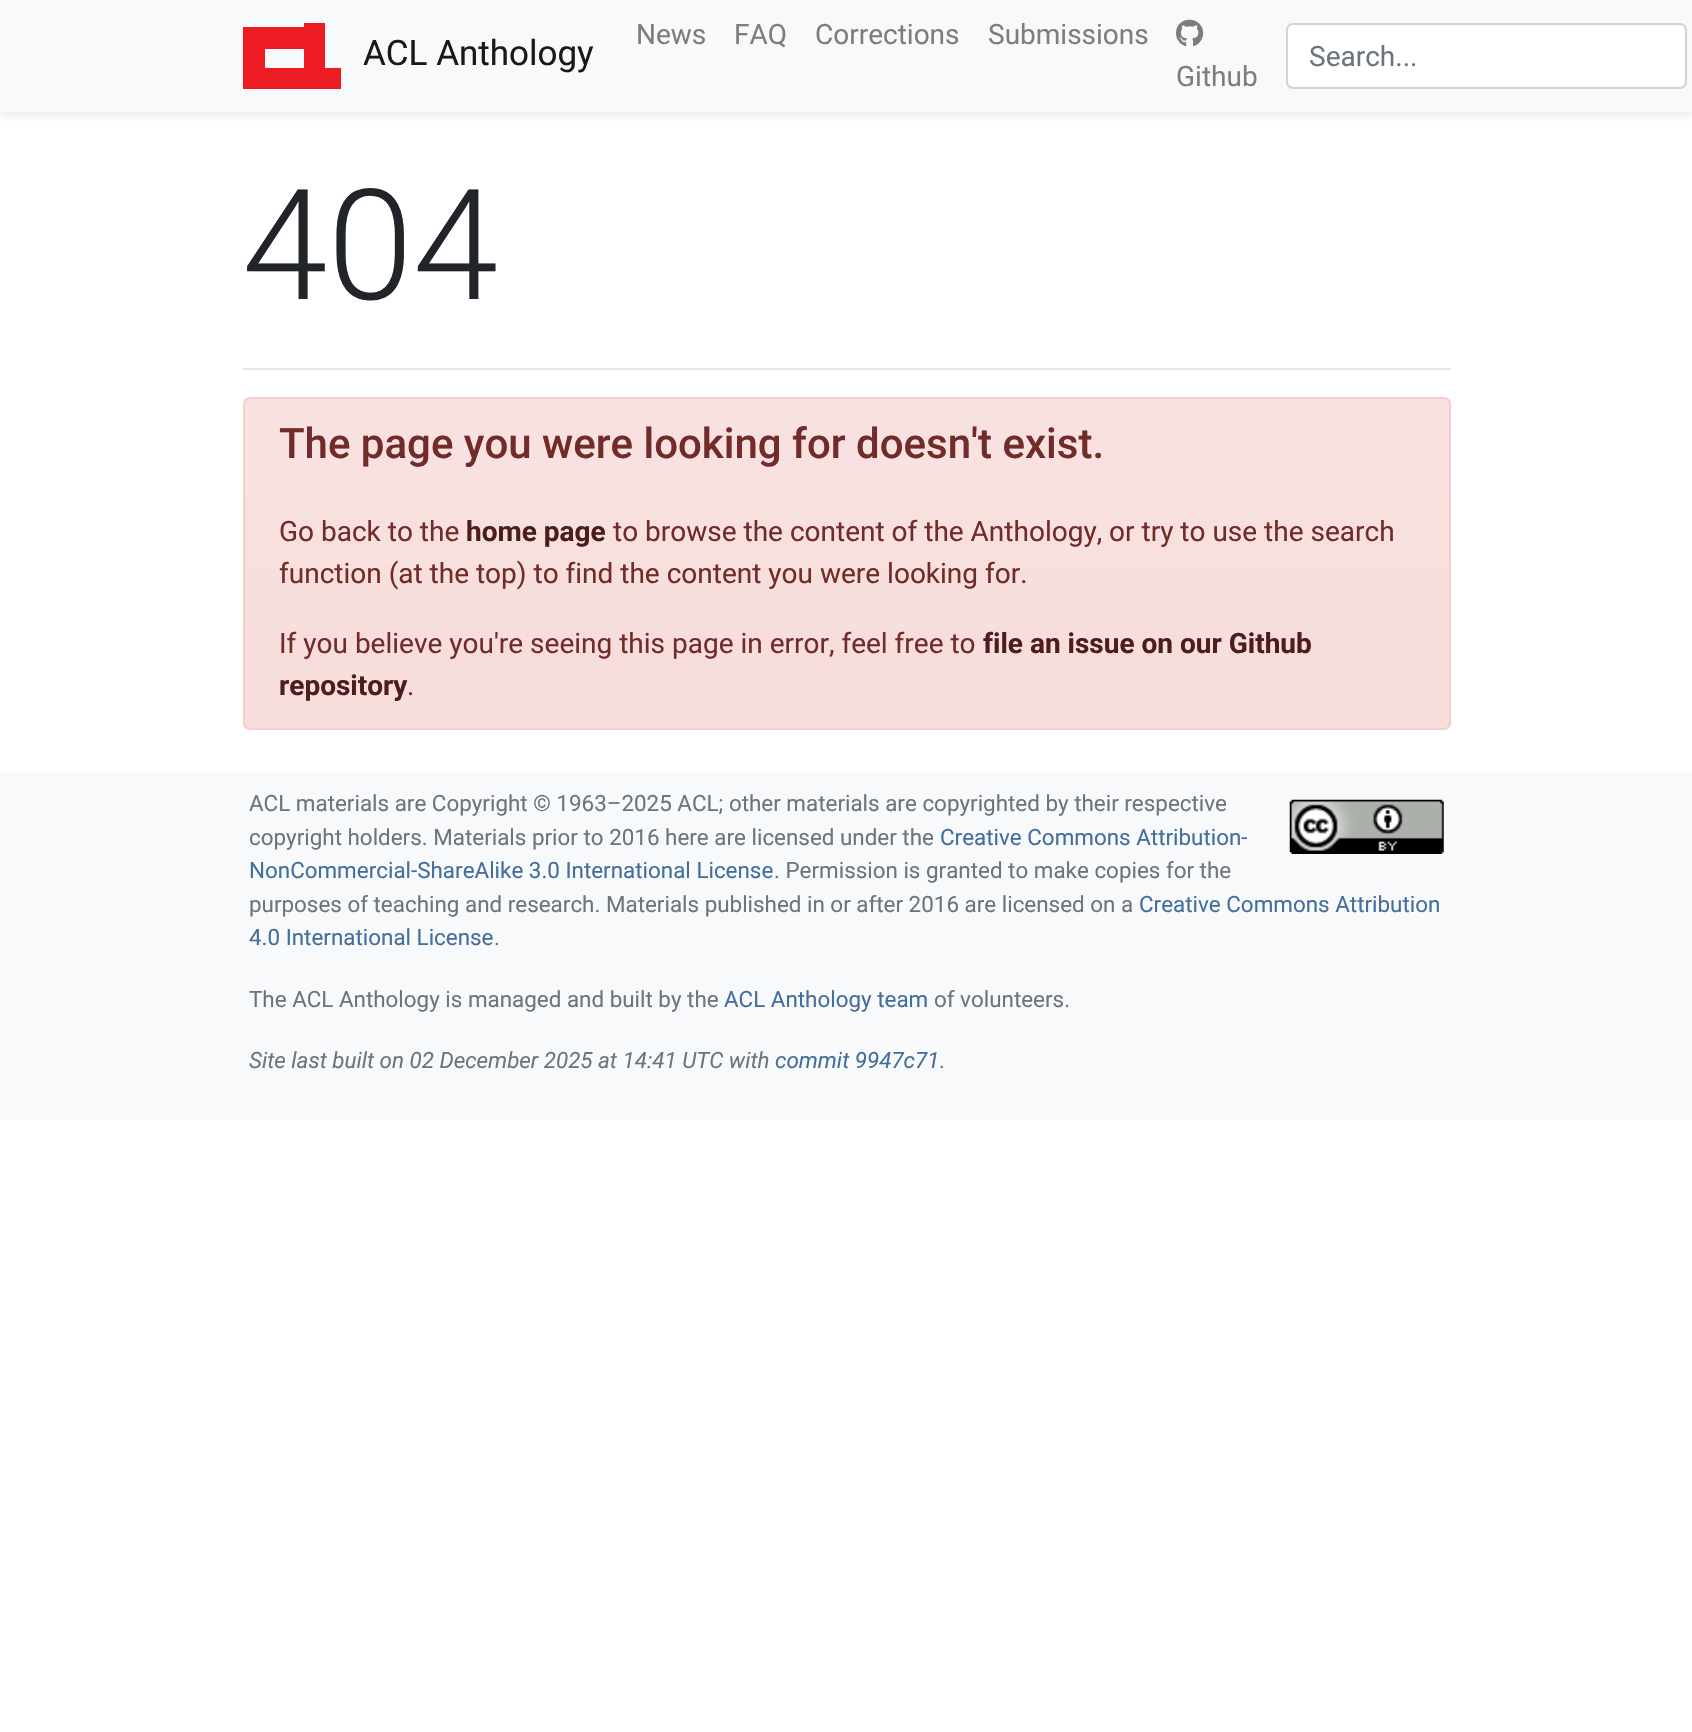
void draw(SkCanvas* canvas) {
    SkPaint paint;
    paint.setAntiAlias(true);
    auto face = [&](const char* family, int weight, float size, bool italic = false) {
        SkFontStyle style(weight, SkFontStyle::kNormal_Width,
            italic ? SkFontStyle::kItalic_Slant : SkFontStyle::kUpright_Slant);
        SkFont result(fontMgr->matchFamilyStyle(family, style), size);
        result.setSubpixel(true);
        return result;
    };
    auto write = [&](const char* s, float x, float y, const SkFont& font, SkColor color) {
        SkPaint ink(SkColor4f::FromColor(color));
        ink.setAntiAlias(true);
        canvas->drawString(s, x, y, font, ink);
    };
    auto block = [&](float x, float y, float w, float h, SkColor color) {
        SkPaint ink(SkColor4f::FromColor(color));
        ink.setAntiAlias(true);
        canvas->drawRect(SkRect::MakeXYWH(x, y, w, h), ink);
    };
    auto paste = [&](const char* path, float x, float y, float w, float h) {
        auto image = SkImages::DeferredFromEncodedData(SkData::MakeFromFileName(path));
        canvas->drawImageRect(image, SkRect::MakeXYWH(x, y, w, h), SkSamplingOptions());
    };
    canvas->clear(SK_ColorWHITE);
    paint.setColor(SkColorSetARGB(18, 0, 0, 0));
    paint.setMaskFilter(SkMaskFilter::MakeBlur(kNormal_SkBlurStyle, 3.5f));
    canvas->drawRect(SkRect::MakeXYWH(0, 4, 1692, 112), paint);
    paint.setMaskFilter(nullptr);
    block(0, 0, 1692, 112, SkColorSetRGB(248, 249, 250));
    paint.setColor(SkColorSetRGB(237, 28, 36));
    canvas->drawPath(SkPathBuilder(SkPathFillType::kEvenOdd).moveTo(304, 23).lineTo(304, 27).lineTo(243, 27).lineTo(243, 89).lineTo(341, 89).lineTo(341, 68).lineTo(325, 68).lineTo(325, 23).close().moveTo(265, 49).lineTo(304, 49).lineTo(304, 68).lineTo(265, 68).close().detach(), paint);
    auto kFont1 = face("Roboto", 400, 35);
    write("ACL Anthology", 363, 65, kFont1, SkColorSetRGB(25, 25, 25));
    auto kFont2 = face("Roboto", 400, 28);
    write("News", 636, 44, kFont2, SkColorSetRGB(124, 125, 125));
    write("FAQ", 734, 44, kFont2, SkColorSetRGB(124, 125, 125));
    write("Corrections", 815, 44, kFont2, SkColorSetRGB(124, 125, 125));
    write("Submissions", 988, 44, kFont2, SkColorSetRGB(124, 125, 125));
    paste("pic1.png", 1176, 19, 28, 28);
    write("Github", 1176, 86, kFont2, SkColorSetRGB(124, 125, 125));
    paint.setColor(SK_ColorWHITE);
    canvas->drawRoundRect(SkRect::MakeXYWH(1287, 24, 399, 64), 6, 6, paint);
    paint.setStyle(SkPaint::kStroke_Style);
    paint.setStrokeWidth(2);
    paint.setColor(SkColorSetRGB(206, 212, 218));
    canvas->drawRoundRect(SkRect::MakeXYWH(1287, 24, 399, 64), 6, 6, paint);
    write("Search...", 1309, 66, kFont2, SkColorSetRGB(108, 117, 125));
    auto kFont3 = face("Roboto", 300, 154);
    write("404", 242, 299, kFont3, SkColorSetRGB(33, 37, 41));
    block(243, 368, 1208, 2, SkColorSetRGB(230, 230, 230));
    canvas->save();
    canvas->clipPath(SkPathBuilder().moveTo(250, 397).lineTo(1444, 397).cubicTo(1448, 397, 1451, 400, 1451, 404).lineTo(1451, 723).cubicTo(1451, 727, 1448, 730, 1444, 730).lineTo(250, 730).cubicTo(246, 730, 243, 727, 243, 723).lineTo(243, 404).cubicTo(243, 400, 246, 397, 250, 397).close().detach(), true);
    paint.setStyle(SkPaint::kFill_Style);
    {
        const SkColor colors[] = {SkColorSetRGB(248, 226, 225), SkColorSetRGB(247, 221, 220)};
        const float stops[] = {0, 1};
        const SkPoint ends[] = {{847, 399}, {847, 728}};
        paint.setShader(SkGradientShader::MakeLinear(ends, colors, stops, 2, SkTileMode::kClamp));
        paint.setAlpha(255);
    }
    canvas->drawRect(SkRect::MakeXYWH(243, 399, 1208, 329), paint);
    canvas->restore();
    paint.setStyle(SkPaint::kStroke_Style);
    paint.setShader(nullptr);
    paint.setColor(SkColorSetRGB(244, 207, 206));
    canvas->drawRoundRect(SkRect::MakeXYWH(244, 398, 1206, 331), 6, 6, paint);
    auto kFont4 = face("Roboto", 500, 42);
    write("The page you were looking for doesn't exist.", 279, 458, kFont4, SkColorSetRGB(113, 43, 41));
    write("Go back to the", 279, 541, kFont2, SkColorSetRGB(113, 43, 41));
    auto kFont5 = face("Roboto", 700, 28);
    write("home page", 466, 541, kFont5, SkColorSetRGB(76, 29, 27));
    write("to browse the content of the Anthology, or try to use the search", 613, 541, kFont2, SkColorSetRGB(113, 43, 41));
    write("function (at the top) to find the content you were looking for.", 279, 583, kFont2, SkColorSetRGB(113, 43, 41));
    write("If you believe you're seeing this page in error, feel free to", 279, 653, kFont2, SkColorSetRGB(113, 43, 41));
    write("file an issue on our Github", 983, 653, kFont5, SkColorSetRGB(76, 29, 27));
    write("repository", 279, 695, kFont5, SkColorSetRGB(76, 29, 27));
    write(".", 407, 695, kFont2, SkColorSetRGB(113, 43, 41));
    block(0, 772, 1692, 348, SkColorSetRGB(248, 249, 250));
    auto kFont6 = face("Roboto", 400, 22.4f);
    write("ACL materials are Copyright © 1963–2025 ACL; other materials are copyrighted by their respective", 249, 811, kFont6, SkColorSetRGB(108, 117, 125));
    paste("pic2.png", 1289, 799, 155, 55);
    write("copyright holders. Materials prior to 2016 here are licensed under the", 249, 845, kFont6, SkColorSetRGB(108, 117, 125));
    write("Creative Commons Attribution-", 940, 845, kFont6, SkColorSetRGB(68, 110, 155));
    write("NonCommercial-ShareAlike 3.0 International License", 249, 878, kFont6, SkColorSetRGB(68, 110, 155));
    write(". Permission is granted to make copies for the", 774, 878, kFont6, SkColorSetRGB(108, 117, 125));
    write("purposes of teaching and research. Materials published in or after 2016 are licensed on a", 249, 912, kFont6, SkColorSetRGB(108, 117, 125));
    write("Creative Commons Attribution", 1139, 912, kFont6, SkColorSetRGB(68, 110, 155));
    write("4.0 International License", 249, 945, kFont6, SkColorSetRGB(68, 110, 155));
    write(".", 494, 945, kFont6, SkColorSetRGB(108, 117, 125));
    write("The ACL Anthology is managed and built by the", 249, 1007, kFont6, SkColorSetRGB(108, 117, 125));
    write("ACL Anthology team", 724, 1007, kFont6, SkColorSetRGB(68, 110, 155));
    write("of volunteers.", 934, 1007, kFont6, SkColorSetRGB(108, 117, 125));
    auto kFont7 = face("Roboto", 400, 22.4f, true);
    write("Site last built on 02 December 2025 at 14:41 UTC with", 249, 1068, kFont7, SkColorSetRGB(108, 117, 125));
    write("commit 9947c71", 775, 1068, kFont7, SkColorSetRGB(68, 110, 155));
    write(".", 940, 1068, kFont7, SkColorSetRGB(108, 117, 125));
}
